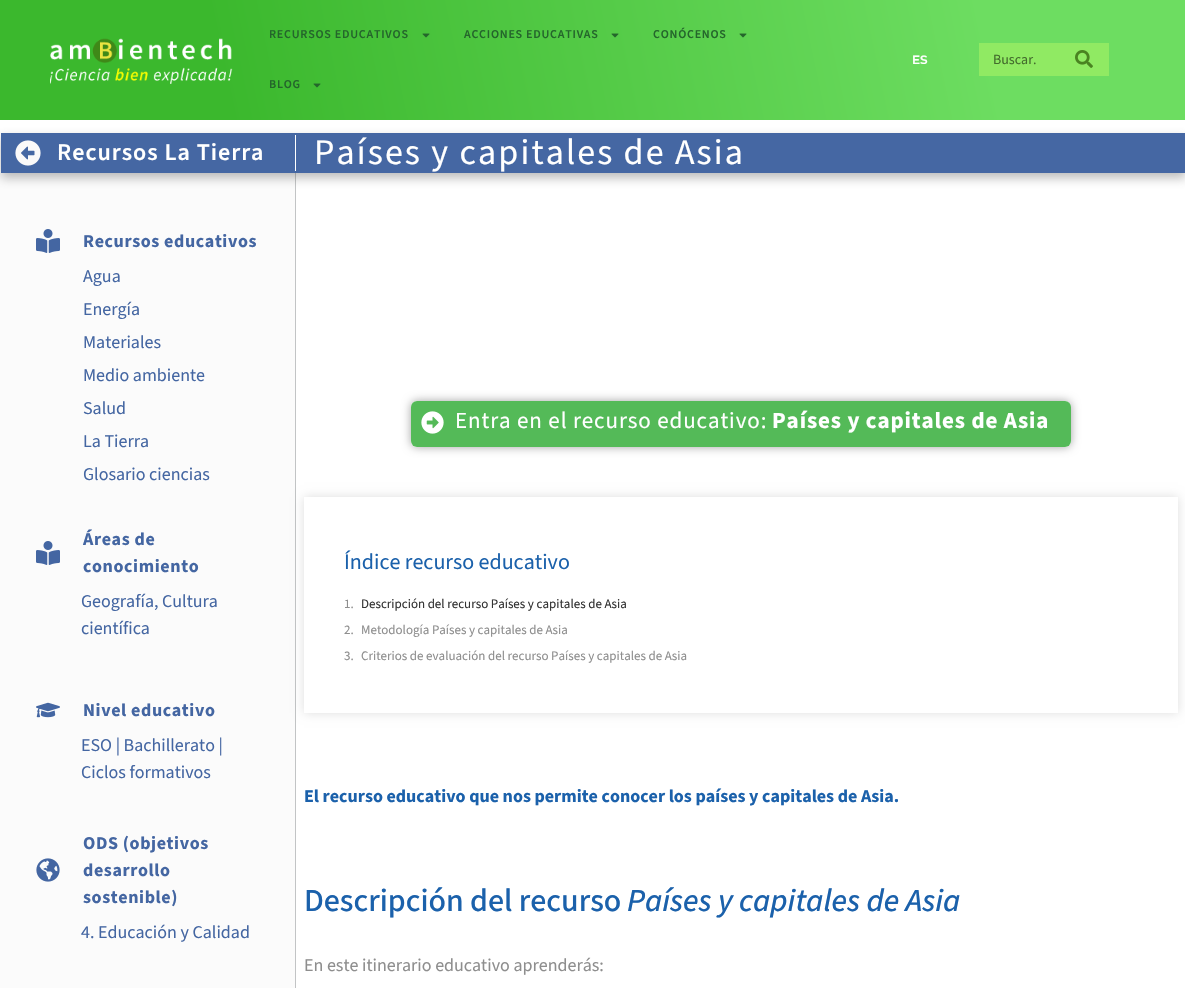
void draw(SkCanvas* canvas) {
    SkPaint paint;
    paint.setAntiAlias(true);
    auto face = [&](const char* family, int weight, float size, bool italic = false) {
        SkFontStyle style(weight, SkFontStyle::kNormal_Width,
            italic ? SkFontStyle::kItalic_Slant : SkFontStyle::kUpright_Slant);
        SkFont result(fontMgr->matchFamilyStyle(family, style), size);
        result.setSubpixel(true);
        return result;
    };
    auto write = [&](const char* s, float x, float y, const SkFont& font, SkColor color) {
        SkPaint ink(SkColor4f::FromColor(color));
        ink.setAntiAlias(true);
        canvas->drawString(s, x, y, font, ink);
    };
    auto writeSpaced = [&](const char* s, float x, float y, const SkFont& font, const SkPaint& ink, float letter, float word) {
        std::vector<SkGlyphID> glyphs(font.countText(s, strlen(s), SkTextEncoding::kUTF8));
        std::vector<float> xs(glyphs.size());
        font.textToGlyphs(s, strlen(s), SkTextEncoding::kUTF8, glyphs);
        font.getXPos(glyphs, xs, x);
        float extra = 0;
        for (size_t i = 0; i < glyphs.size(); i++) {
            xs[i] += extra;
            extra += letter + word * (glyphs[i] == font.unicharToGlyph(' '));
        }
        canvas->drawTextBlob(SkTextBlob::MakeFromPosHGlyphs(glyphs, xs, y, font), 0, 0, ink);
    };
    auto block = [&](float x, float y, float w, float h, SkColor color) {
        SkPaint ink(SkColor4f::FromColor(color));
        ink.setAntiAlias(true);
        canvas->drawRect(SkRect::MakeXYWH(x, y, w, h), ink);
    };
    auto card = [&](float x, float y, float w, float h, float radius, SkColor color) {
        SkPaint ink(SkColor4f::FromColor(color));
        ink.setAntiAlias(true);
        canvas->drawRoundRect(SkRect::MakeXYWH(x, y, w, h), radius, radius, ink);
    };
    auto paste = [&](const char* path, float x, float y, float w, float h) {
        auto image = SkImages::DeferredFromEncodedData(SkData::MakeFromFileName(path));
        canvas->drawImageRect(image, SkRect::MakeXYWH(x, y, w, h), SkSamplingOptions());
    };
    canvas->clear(SK_ColorWHITE);
    {
        const SkColor colors[] = {SkColorSetRGB(59, 184, 45), SkColorSetRGB(109, 221, 97)};
        const float stops[] = {0.19f, 0.83f};
        const SkPoint ends[] = {{13, 183}, {1172, -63}};
        paint.setShader(SkGradientShader::MakeLinear(ends, colors, stops, 2, SkTileMode::kClamp));
        paint.setAlpha(255);
    }
    canvas->drawRect(SkRect::MakeXYWH(0, 0, 1185, 120), paint);
    paste("pic1.png", 50, 38, 183, 46);
    auto kFont1 = face("Source Sans 3", 600, 12);
    paint.setShader(nullptr);
    paint.setColor(SkColorSetRGB(36, 102, 43));
    writeSpaced("RECURSOS EDUCATIVOS", 269, 38, kFont1, paint, 0.75f, 0);
    paste("pic2.png", 422, 33, 8, 5);
    writeSpaced("ACCIONES EDUCATIVAS", 464, 38, kFont1, paint, 0.75f, 0);
    paste("pic3.png", 611, 33, 8, 5);
    writeSpaced("CONÓCENOS", 653, 38, kFont1, paint, 0.75f, 0);
    paste("pic4.png", 739, 33, 8, 5);
    writeSpaced("BLOG", 269, 88, kFont1, paint, 0.75f, 0);
    paste("pic5.png", 313, 83, 8, 5);
    auto kFont2 = face("Montserrat", 600, 12);
    write("ES", 912, 64, kFont2, SK_ColorWHITE);
    block(979, 43, 130, 33, SkColorSetRGB(144, 234, 99));
    auto kFont3 = face("Source Sans Pro", 400, 14);
    write("Buscar.", 993, 64, kFont3, SkColorSetRGB(67, 108, 44));
    paste("pic6.png", 1075, 50, 18, 18);
    block(0, 173, 295, 815, SkColorSetRGB(251, 251, 251));
    block(295, 173, 1, 815, SkColorSetRGB(194, 196, 197));
    paint.setColor(SkColorSetARGB(94, 71, 71, 71));
    paint.setMaskFilter(SkMaskFilter::MakeBlur(kNormal_SkBlurStyle, 5));
    canvas->drawRect(SkRect::MakeXYWH(1, 138, 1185, 40), paint);
    paint.setMaskFilter(nullptr);
    block(1, 133, 1184, 40, SkColorSetRGB(69, 103, 163));
    block(295, 135, 1, 36, SK_ColorWHITE);
    paste("pic7.png", 15, 140, 26, 26);
    auto kFont4 = face("Source Sans 3", 600, 24);
    paint.setColor(SK_ColorWHITE);
    writeSpaced("Recursos La Tierra", 57, 160, kFont4, paint, 1, 0);
    auto kFont5 = face("Source Sans 3", 400, 36);
    writeSpaced("Países y capitales de Asia", 314, 164, kFont5, paint, 2.1f, 0);
    paste("pic8.png", 36, 229, 24, 24);
    auto kFont6 = face("Source Sans 3", 700, 18);
    paint.setColor(SkColorSetRGB(68, 102, 162));
    writeSpaced("Recursos educativos", 83, 247, kFont6, paint, 0.6f, 0);
    auto kFont7 = face("Source Sans 3", 400, 18);
    write("Agua", 83, 282, kFont7, SkColorSetRGB(68, 102, 162));
    write("Energía", 83, 315, kFont7, SkColorSetRGB(68, 102, 162));
    write("Materiales", 83, 348, kFont7, SkColorSetRGB(68, 102, 162));
    write("Medio ambiente", 83, 381, kFont7, SkColorSetRGB(68, 102, 162));
    write("Salud", 83, 414, kFont7, SkColorSetRGB(68, 102, 162));
    write("La Tierra", 83, 447, kFont7, SkColorSetRGB(68, 102, 162));
    write("Glosario ciencias", 83, 480, kFont7, SkColorSetRGB(68, 102, 162));
    paste("pic8.png", 36, 541, 24, 24);
    writeSpaced("Áreas de", 83, 545, kFont6, paint, 0.6f, 0);
    writeSpaced("conocimiento", 83, 572, kFont6, paint, 0.6f, 0);
    write("Geografía, Cultura", 81, 607, kFont7, SkColorSetRGB(68, 102, 162));
    write("científica", 81, 634, kFont7, SkColorSetRGB(68, 102, 162));
    paste("pic9.png", 36, 702, 24, 16);
    writeSpaced("Nivel educativo", 83, 716, kFont6, paint, 0.6f, 0);
    write("ESO | Bachillerato |", 81, 751, kFont7, SkColorSetRGB(68, 102, 162));
    write("Ciclos formativos", 81, 778, kFont7, SkColorSetRGB(68, 102, 162));
    paste("pic10.png", 36, 858, 24, 24);
    writeSpaced("ODS (objetivos", 83, 849, kFont6, paint, 0.6f, 0);
    writeSpaced("desarrollo", 83, 876, kFont6, paint, 0.6f, 0);
    writeSpaced("sostenible)", 83, 903, kFont6, paint, 0.6f, 0);
    write("4. Educación y Calidad", 81, 938, kFont7, SkColorSetRGB(68, 102, 162));
    canvas->save();
    canvas->clipPath(SkPathBuilder(SkPathFillType::kEvenOdd).moveTo(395, 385).lineTo(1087, 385).lineTo(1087, 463).lineTo(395, 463).close().moveTo(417, 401).lineTo(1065, 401).cubicTo(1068.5f, 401, 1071, 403.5f, 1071, 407).lineTo(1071, 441).cubicTo(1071, 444.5f, 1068.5f, 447, 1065, 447).lineTo(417, 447).cubicTo(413.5f, 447, 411, 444.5f, 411, 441).lineTo(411, 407).cubicTo(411, 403.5f, 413.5f, 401, 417, 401).close().detach(), true);
    paint.setColor(SkColorSetARGB(92, 0, 0, 0));
    paint.setMaskFilter(SkMaskFilter::MakeBlur(kNormal_SkBlurStyle, 5));
    canvas->drawRoundRect(SkRect::MakeXYWH(411, 401, 660, 46), 6, 6, paint);
    paint.setMaskFilter(nullptr);
    canvas->restore();
    card(411, 401, 660, 46, 6, SkColorSetARGB(235, 69, 180, 74));
    paste("pic11.png", 421, 411, 23, 23);
    auto kFont8 = face("Source Sans 3", 400, 23);
    paint.setColor(SK_ColorWHITE);
    writeSpaced("Entra en el recurso educativo:", 455, 428, kFont8, paint, 0.9f, 0);
    auto kFont9 = face("Source Sans 3", 700, 23);
    writeSpaced("Países y capitales de Asia", 772, 428, kFont9, paint, 0.9f, 0);
    canvas->save();
    canvas->clipPath(SkPathBuilder(SkPathFillType::kEvenOdd).moveTo(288, 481).lineTo(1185, 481).lineTo(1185, 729).lineTo(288, 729).close().moveTo(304, 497).lineTo(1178, 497).lineTo(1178, 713).lineTo(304, 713).close().detach(), true);
    paint.setColor(SkColorSetARGB(33, 0, 0, 0));
    paint.setMaskFilter(SkMaskFilter::MakeBlur(kNormal_SkBlurStyle, 5));
    canvas->drawRect(SkRect::MakeXYWH(304, 497, 874, 216), paint);
    paint.setMaskFilter(nullptr);
    canvas->restore();
    auto kFont10 = face("Source Sans 3", 400, 22);
    write("Índice recurso educativo", 344, 569, kFont10, SkColorSetRGB(27, 97, 171));
    auto kFont11 = face("Source Sans 3", 400, 13);
    write("1.", 344, 608, kFont11, SkColorSetRGB(142, 142, 142));
    write("Descripción del recurso Países y capitales de Asia", 361, 608, kFont11, SkColorSetRGB(51, 51, 51));
    write("2.", 344, 634, kFont11, SkColorSetRGB(142, 142, 142));
    write("Metodología Países y capitales de Asia", 361, 634, kFont11, SkColorSetRGB(142, 142, 142));
    write("3.", 344, 660, kFont11, SkColorSetRGB(142, 142, 142));
    write("Criterios de evaluación del recurso Países y capitales de Asia", 361, 660, kFont11, SkColorSetRGB(142, 142, 142));
    write("El recurso educativo que nos permite conocer los países y capitales de Asia.", 304, 802, kFont6, SkColorSetRGB(27, 97, 171));
    auto kFont12 = face("Source Sans 3", 500, 32);
    write("Descripción del recurso", 304, 911, kFont12, SkColorSetRGB(27, 97, 171));
    auto kFont13 = face("Source Sans 3", 500, 32, true);
    write("Países y capitales de Asia", 627, 911, kFont13, SkColorSetRGB(27, 97, 171));
    write("En este itinerario educativo aprenderás:", 304, 971, kFont7, SkColorSetRGB(142, 142, 142));
}
